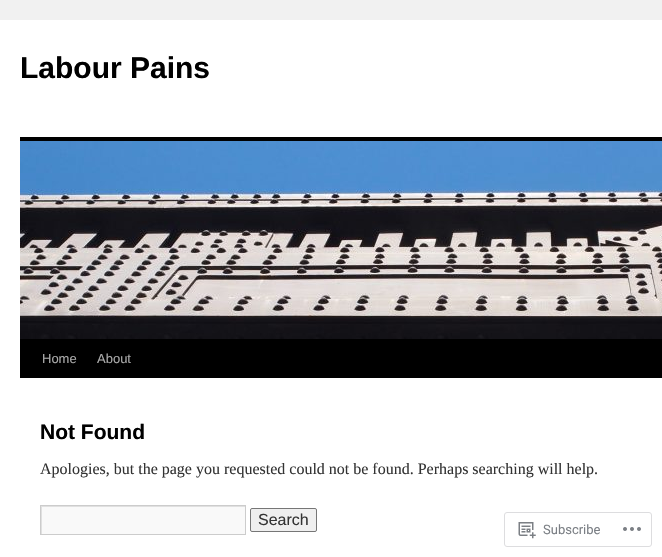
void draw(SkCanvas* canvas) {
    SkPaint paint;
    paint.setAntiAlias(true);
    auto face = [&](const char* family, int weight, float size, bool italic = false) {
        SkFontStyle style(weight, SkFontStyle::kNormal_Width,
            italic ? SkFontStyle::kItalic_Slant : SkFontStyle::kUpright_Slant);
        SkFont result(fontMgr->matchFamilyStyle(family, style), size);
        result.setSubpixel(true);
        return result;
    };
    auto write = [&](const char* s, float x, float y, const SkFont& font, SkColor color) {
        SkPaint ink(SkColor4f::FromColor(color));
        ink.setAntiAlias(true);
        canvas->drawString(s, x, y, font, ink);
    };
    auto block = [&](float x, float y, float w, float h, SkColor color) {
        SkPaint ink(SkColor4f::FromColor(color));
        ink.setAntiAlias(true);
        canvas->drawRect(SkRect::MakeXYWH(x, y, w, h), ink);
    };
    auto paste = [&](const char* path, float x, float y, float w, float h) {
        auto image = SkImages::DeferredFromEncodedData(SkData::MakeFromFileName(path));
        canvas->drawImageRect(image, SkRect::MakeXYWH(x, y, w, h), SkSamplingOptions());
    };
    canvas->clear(SkColorSetRGB(241, 241, 241));
    block(0, 20, 662, 537, SK_ColorWHITE);
    auto kFont1 = face("Liberation Sans", 700, 30);
    write("Labour Pains", 20, 78, kFont1, SK_ColorBLACK);
    block(20, 137, 642, 4, SK_ColorBLACK);
    block(20, 339, 642, 39, SK_ColorBLACK);
    paste("pic1.png", 20, 141, 642, 198);
    auto kFont2 = face("Liberation Sans", 400, 13);
    write("Home", 42, 363, kFont2, SkColorSetRGB(170, 170, 170));
    write("About", 97, 363, kFont2, SkColorSetRGB(170, 170, 170));
    auto kFont3 = face("Liberation Sans", 700, 21);
    write("Not Found", 40, 439, kFont3, SK_ColorBLACK);
    auto kFont4 = face("Liberation Serif", 400, 16);
    write("Apologies, but the page you requested could not be found. Perhaps searching will help.", 40, 474, kFont4, SkColorSetRGB(51, 51, 51));
    block(42, 507, 203, 27, SkColorSetRGB(249, 249, 249));
    canvas->save();
    canvas->clipRect(SkRect::MakeXYWH(41, 506, 204, 28));
    paint.setColor(SkColorSetRGB(224, 224, 224));
    canvas->drawPath(SkPathBuilder(SkPathFillType::kEvenOdd).moveTo(-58, 407).lineTo(344, 407).lineTo(344, 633).lineTo(-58, 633).close().moveTo(42, 507).lineTo(246, 507).lineTo(246, 535).lineTo(42, 535).close().detach(), paint);
    canvas->restore();
    paint.setStyle(SkPaint::kStroke_Style);
    paint.setStrokeWidth(1);
    paint.setColor(SkColorSetRGB(204, 204, 204));
    canvas->drawRect(SkRect::MakeXYWH(40.5f, 505.5f, 205, 29), paint);
    paint.setStyle(SkPaint::kFill_Style);
    paint.setColor(SkColorSetRGB(239, 239, 239));
    canvas->drawRoundRect(SkRect::MakeXYWH(250.5f, 508.5f, 66, 23), 1.5f, 1.5f, paint);
    paint.setStyle(SkPaint::kStroke_Style);
    paint.setColor(SkColorSetRGB(118, 118, 118));
    canvas->drawRoundRect(SkRect::MakeXYWH(250.5f, 508.5f, 66, 23), 1.5f, 1.5f, paint);
    auto kFont5 = face("Liberation Sans", 400, 16);
    write("Search", 258, 525, kFont5, SkColorSetRGB(51, 51, 51));
    paint.setColor(SkColorSetRGB(221, 221, 223));
    canvas->drawRoundRect(SkRect::MakeXYWH(504.5f, 512.5f, 147, 34), 2.5f, 2.5f, paint);
    paste("pic2.png", 518, 522, 18, 17);
    auto kFont6 = face("Roboto", 400, 13);
    write("Subscribe", 543, 534, kFont6, SkColorSetRGB(123, 127, 133));
    paste("pic3.png", 623, 527, 18, 4);
}
